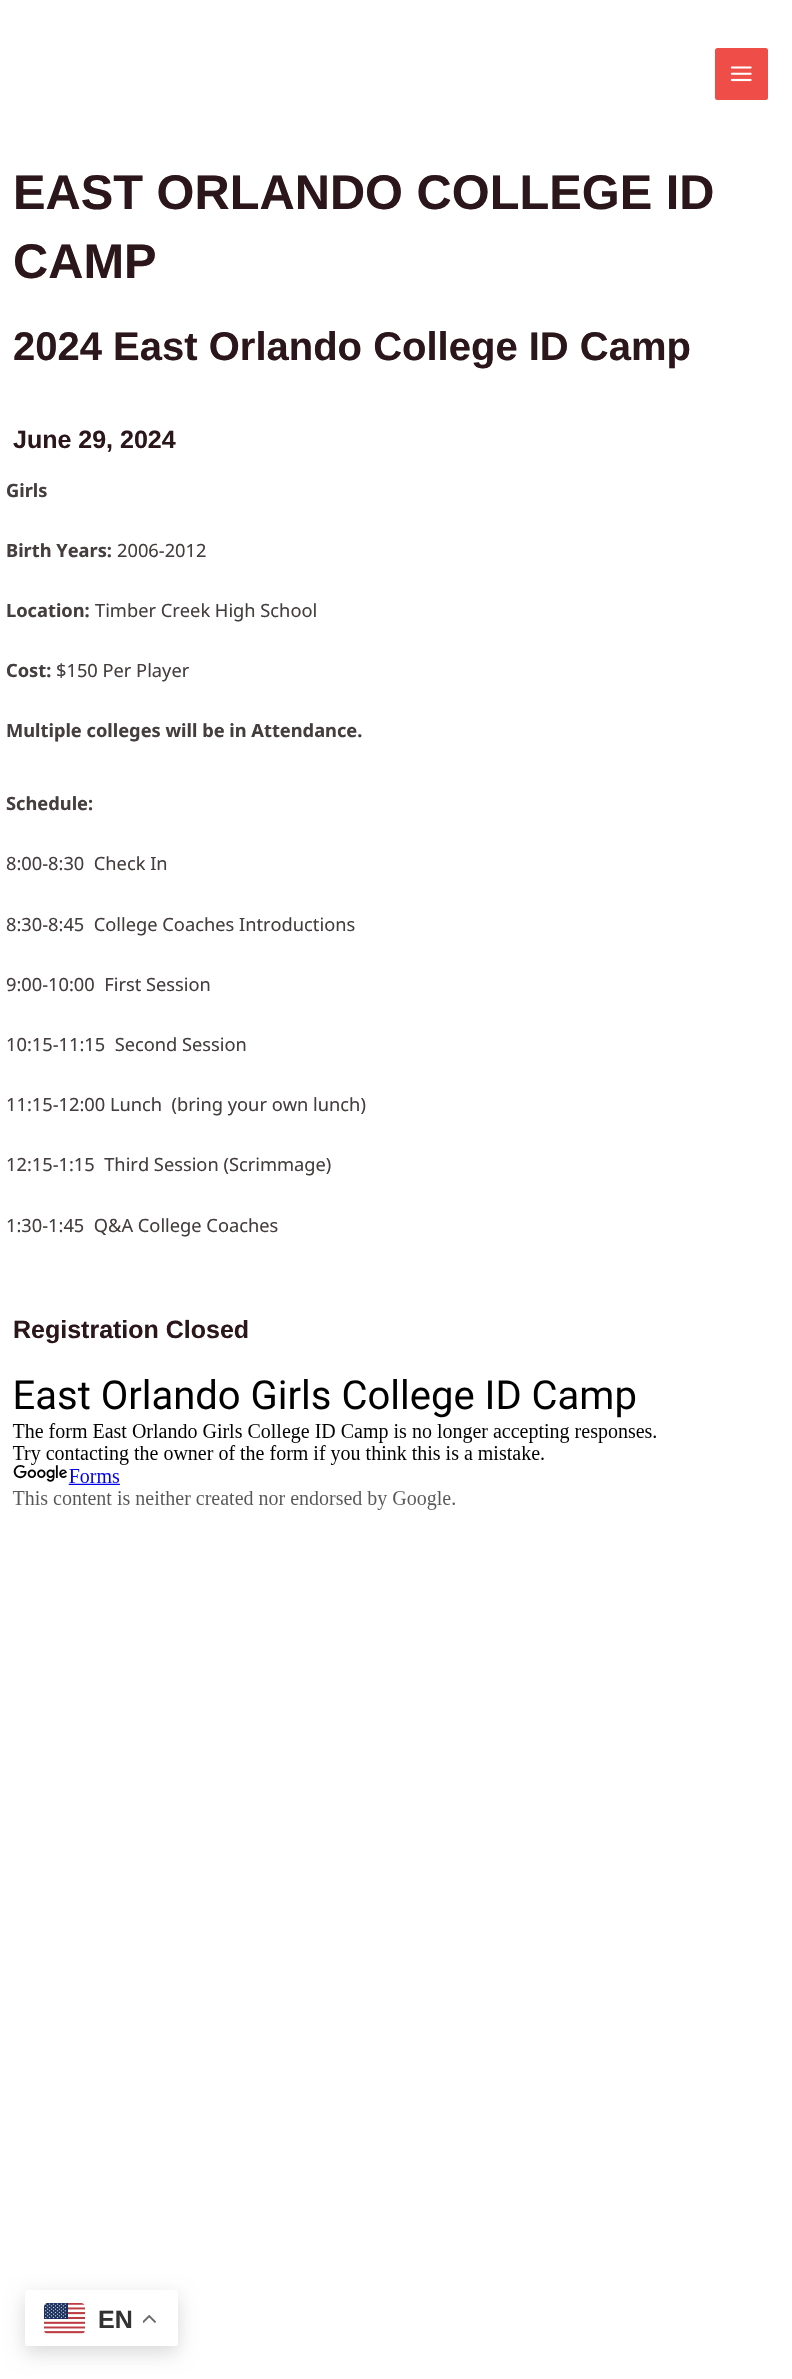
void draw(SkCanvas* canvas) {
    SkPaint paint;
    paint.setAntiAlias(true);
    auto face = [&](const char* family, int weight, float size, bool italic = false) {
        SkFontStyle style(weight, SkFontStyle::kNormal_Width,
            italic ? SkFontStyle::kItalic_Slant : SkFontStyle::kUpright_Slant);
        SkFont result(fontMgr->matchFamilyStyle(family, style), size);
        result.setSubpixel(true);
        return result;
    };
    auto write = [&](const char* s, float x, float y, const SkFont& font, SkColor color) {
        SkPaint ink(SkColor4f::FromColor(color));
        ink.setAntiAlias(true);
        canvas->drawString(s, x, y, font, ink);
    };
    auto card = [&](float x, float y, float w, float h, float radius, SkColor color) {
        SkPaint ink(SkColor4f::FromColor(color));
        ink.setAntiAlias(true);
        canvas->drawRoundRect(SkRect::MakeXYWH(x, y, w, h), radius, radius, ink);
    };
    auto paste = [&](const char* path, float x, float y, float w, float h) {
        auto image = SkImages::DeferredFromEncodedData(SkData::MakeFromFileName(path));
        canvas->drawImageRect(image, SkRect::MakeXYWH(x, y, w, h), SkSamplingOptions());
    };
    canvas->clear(SK_ColorWHITE);
    card(715, 48, 53, 52, 2.5f, SkColorSetRGB(239, 77, 72));
    paste("pic1.png", 730, 66, 22, 16);
    auto kFont1 = face("Liberation Sans", 700, 48.75f);
    write("EAST ORLANDO COLLEGE ID", 13, 209, kFont1, SkColorSetRGB(43, 22, 27));
    write("CAMP", 13, 278, kFont1, SkColorSetRGB(43, 22, 27));
    auto kFont2 = face("Liberation Sans", 700, 40);
    write("2024 East Orlando College ID Camp", 13, 360, kFont2, SkColorSetRGB(43, 22, 27));
    auto kFont3 = face("Liberation Sans", 700, 25);
    write("June 29, 2024", 13, 448, kFont3, SkColorSetRGB(43, 22, 27));
    auto kFont4 = face("Noto Sans", 700, 18.25f);
    write("Girls", 6, 497, kFont4, SkColorSetRGB(69, 62, 62));
    write("Birth Years:", 6, 557, kFont4, SkColorSetRGB(69, 62, 62));
    auto kFont5 = face("Noto Sans", 400, 18.25f);
    write("2006-2012", 117, 557, kFont5, SkColorSetRGB(69, 62, 62));
    write("Location:", 6, 617, kFont4, SkColorSetRGB(69, 62, 62));
    write("Timber Creek High School", 95, 617, kFont5, SkColorSetRGB(69, 62, 62));
    write("Cost:", 6, 677, kFont4, SkColorSetRGB(69, 62, 62));
    write("$150 Per Player", 56, 677, kFont5, SkColorSetRGB(69, 62, 62));
    write("Multiple colleges will be in Attendance.", 6, 737, kFont4, SkColorSetRGB(69, 62, 62));
    write("Schedule:", 6, 810, kFont4, SkColorSetRGB(69, 62, 62));
    write("8:00-8:30  Check In", 6, 870, kFont5, SkColorSetRGB(69, 62, 62));
    write("8:30-8:45  College Coaches Introductions", 6, 931, kFont5, SkColorSetRGB(69, 62, 62));
    write("9:00-10:00  First Session", 6, 991, kFont5, SkColorSetRGB(69, 62, 62));
    write("10:15-11:15  Second Session", 6, 1051, kFont5, SkColorSetRGB(69, 62, 62));
    write("11:15-12:00 Lunch  (bring your own lunch)", 6, 1111, kFont5, SkColorSetRGB(69, 62, 62));
    write("12:15-1:15  Third Session (Scrimmage)", 6, 1171, kFont5, SkColorSetRGB(69, 62, 62));
    write("1:30-1:45  Q&A College Coaches", 6, 1232, kFont5, SkColorSetRGB(69, 62, 62));
    write("Registration Closed", 13, 1338, kFont3, SkColorSetRGB(43, 22, 27));
    paste("pic2.png", 12, 1379, 644, 131);
    paint.setColor(SkColorSetARGB(38, 0, 0, 0));
    paint.setMaskFilter(SkMaskFilter::MakeBlur(kNormal_SkBlurStyle, 9.5f));
    canvas->drawRoundRect(SkRect::MakeXYWH(25, 2296, 153, 57), 2.5f, 2.5f, paint);
    paint.setMaskFilter(nullptr);
    card(25, 2290, 153, 56, 2.5f, SK_ColorWHITE);
    paste("pic3.png", 44, 2303, 41, 31);
    write("EN", 98, 2328, kFont3, SkColorSetRGB(51, 51, 51));
    paste("pic4.png", 143, 2315, 13, 8);
}
